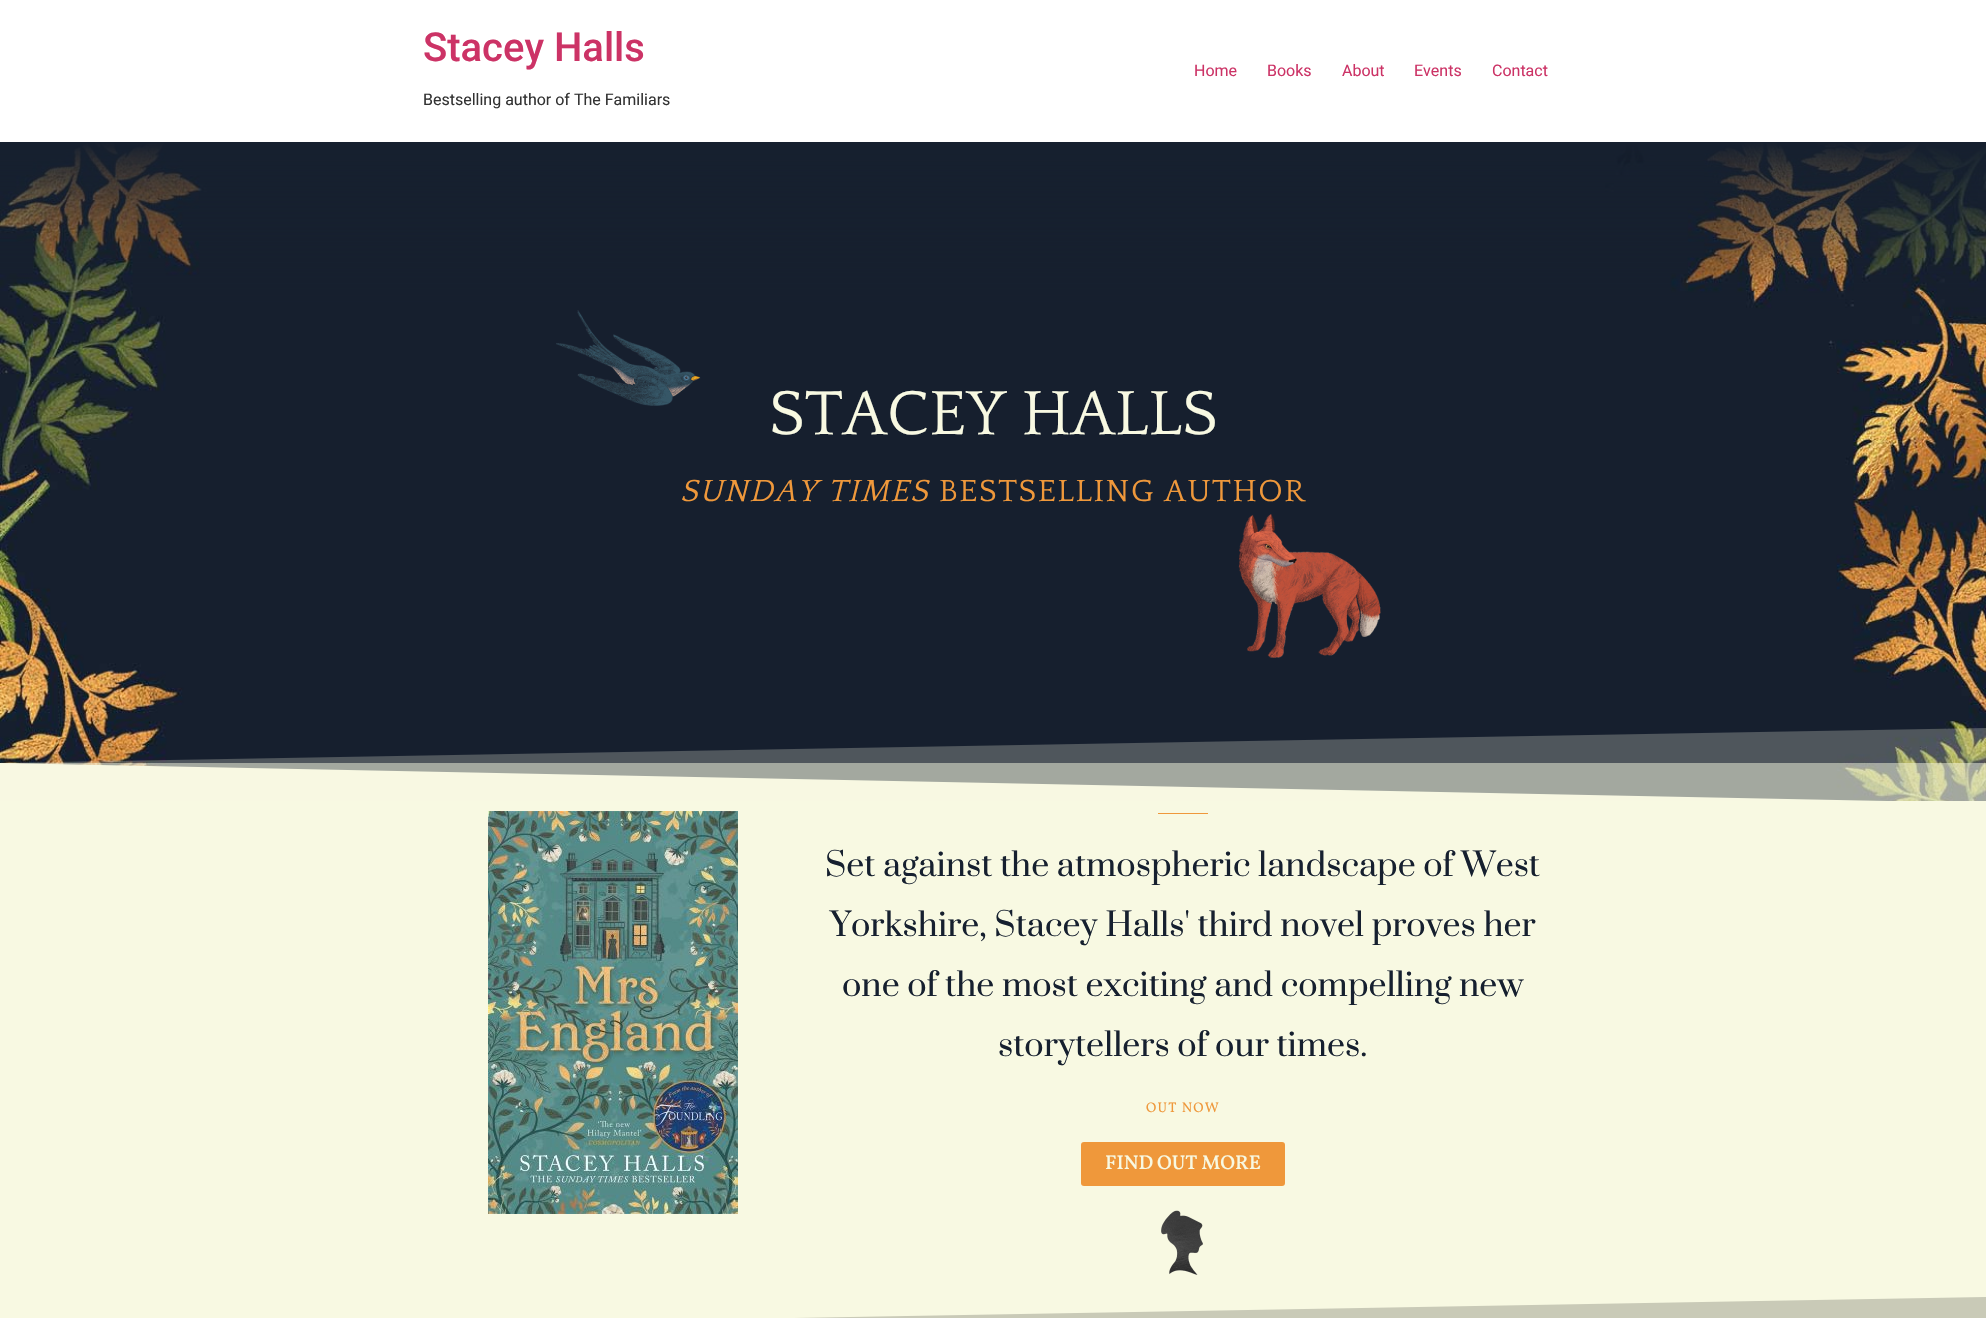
void draw(SkCanvas* canvas) {
    SkPaint paint;
    paint.setAntiAlias(true);
    auto face = [&](const char* family, int weight, float size, bool italic = false) {
        SkFontStyle style(weight, SkFontStyle::kNormal_Width,
            italic ? SkFontStyle::kItalic_Slant : SkFontStyle::kUpright_Slant);
        SkFont result(fontMgr->matchFamilyStyle(family, style), size);
        result.setSubpixel(true);
        return result;
    };
    auto write = [&](const char* s, float x, float y, const SkFont& font, SkColor color) {
        SkPaint ink(SkColor4f::FromColor(color));
        ink.setAntiAlias(true);
        canvas->drawString(s, x, y, font, ink);
    };
    auto writeSpaced = [&](const char* s, float x, float y, const SkFont& font, const SkPaint& ink, float letter, float word) {
        std::vector<SkGlyphID> glyphs(font.countText(s, strlen(s), SkTextEncoding::kUTF8));
        std::vector<float> xs(glyphs.size());
        font.textToGlyphs(s, strlen(s), SkTextEncoding::kUTF8, glyphs);
        font.getXPos(glyphs, xs, x);
        float extra = 0;
        for (size_t i = 0; i < glyphs.size(); i++) {
            xs[i] += extra;
            extra += letter + word * (glyphs[i] == font.unicharToGlyph(' '));
        }
        canvas->drawTextBlob(SkTextBlob::MakeFromPosHGlyphs(glyphs, xs, y, font), 0, 0, ink);
    };
    auto block = [&](float x, float y, float w, float h, SkColor color) {
        SkPaint ink(SkColor4f::FromColor(color));
        ink.setAntiAlias(true);
        canvas->drawRect(SkRect::MakeXYWH(x, y, w, h), ink);
    };
    auto card = [&](float x, float y, float w, float h, float radius, SkColor color) {
        SkPaint ink(SkColor4f::FromColor(color));
        ink.setAntiAlias(true);
        canvas->drawRoundRect(SkRect::MakeXYWH(x, y, w, h), radius, radius, ink);
    };
    auto paste = [&](const char* path, float x, float y, float w, float h) {
        auto image = SkImages::DeferredFromEncodedData(SkData::MakeFromFileName(path));
        canvas->drawImageRect(image, SkRect::MakeXYWH(x, y, w, h), SkSamplingOptions());
    };
    canvas->clear(SK_ColorWHITE);
    auto kFont1 = face("Roboto", 500, 40);
    write("Stacey Halls", 423, 61, kFont1, SkColorSetRGB(204, 51, 102));
    auto kFont2 = face("Roboto", 400, 16);
    write("Bestselling author of The Familiars", 423, 105, kFont2, SkColorSetRGB(51, 51, 51));
    write("Home", 1194, 76, kFont2, SkColorSetRGB(204, 51, 102));
    write("Books", 1267, 76, kFont2, SkColorSetRGB(204, 51, 102));
    write("About", 1342, 76, kFont2, SkColorSetRGB(204, 51, 102));
    write("Events", 1414, 76, kFont2, SkColorSetRGB(204, 51, 102));
    write("Contact", 1492, 76, kFont2, SkColorSetRGB(204, 51, 102));
    paste("pic1.png", 0, 142, 1986, 659);
    paste("pic2.png", 556, 310, 145, 96);
    auto kFont3 = face("Quattrocento", 400, 65);
    write("STACEY HALLS", 769, 434, kFont3, SkColorSetRGB(248, 249, 226));
    auto kFont4 = face("Quattrocento", 400, 32, true);
    paint.setColor(SkColorSetRGB(239, 152, 59));
    writeSpaced("SUNDAY TIMES", 680, 501, kFont4, paint, 1.5f, 0);
    auto kFont5 = face("Quattrocento", 400, 32);
    writeSpaced("BESTSELLING AUTHOR", 939, 501, kFont5, paint, 1.5f, 0);
    paste("pic3.png", 1238, 514, 143, 144);
    paint.setColor(SkColorSetRGB(248, 249, 226));
    canvas->drawPath(SkPathBuilder().moveTo(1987, 803).lineTo(-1, 803).lineTo(-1, 763).close().detach(), paint);
    block(2, 763, 1984, 38, SkColorSetARGB(128, 248, 249, 226));
    paint.setColor(SkColorSetARGB(64, 248, 249, 226));
    canvas->drawPath(SkPathBuilder().moveTo(-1, 803).lineTo(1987, 803).lineTo(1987, 728).lineTo(-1, 763).close().detach(), paint);
    block(0, 801, 1986, 517, SkColorSetRGB(248, 249, 226));
    paste("pic4.png", 488, 811, 250, 403);
    block(1158, 813, 50, 1, SkColorSetRGB(239, 152, 59));
    auto kFont6 = face("Prata", 400, 32);
    write("Set against the atmospheric landscape of West", 825, 876, kFont6, SkColorSetRGB(22, 32, 47));
    write("Yorkshire, Stacey Halls' third novel proves her", 830, 936, kFont6, SkColorSetRGB(22, 32, 47));
    write("one of the most exciting and compelling new", 842, 996, kFont6, SkColorSetRGB(22, 32, 47));
    write("storytellers of our times.", 998, 1056, kFont6, SkColorSetRGB(22, 32, 47));
    auto kFont7 = face("Vollkorn", 400, 14);
    paint.setColor(SkColorSetRGB(239, 152, 59));
    writeSpaced("OUT NOW", 1146, 1112, kFont7, paint, 1.25f, 0);
    card(1081, 1142, 204, 44, 3, SkColorSetRGB(239, 152, 59));
    auto kFont8 = face("Vollkorn", 500, 20);
    write("FIND OUT MORE", 1105, 1169, kFont8, SkColorSetRGB(248, 249, 226));
    paste("pic5.png", 1161, 1210, 42, 65);
    paint.setColor(SkColorSetRGB(201, 202, 183));
    canvas->drawPath(SkPathBuilder().moveTo(-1, 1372).lineTo(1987, 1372).lineTo(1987, 1297).lineTo(-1, 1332).close().detach(), paint);
}
